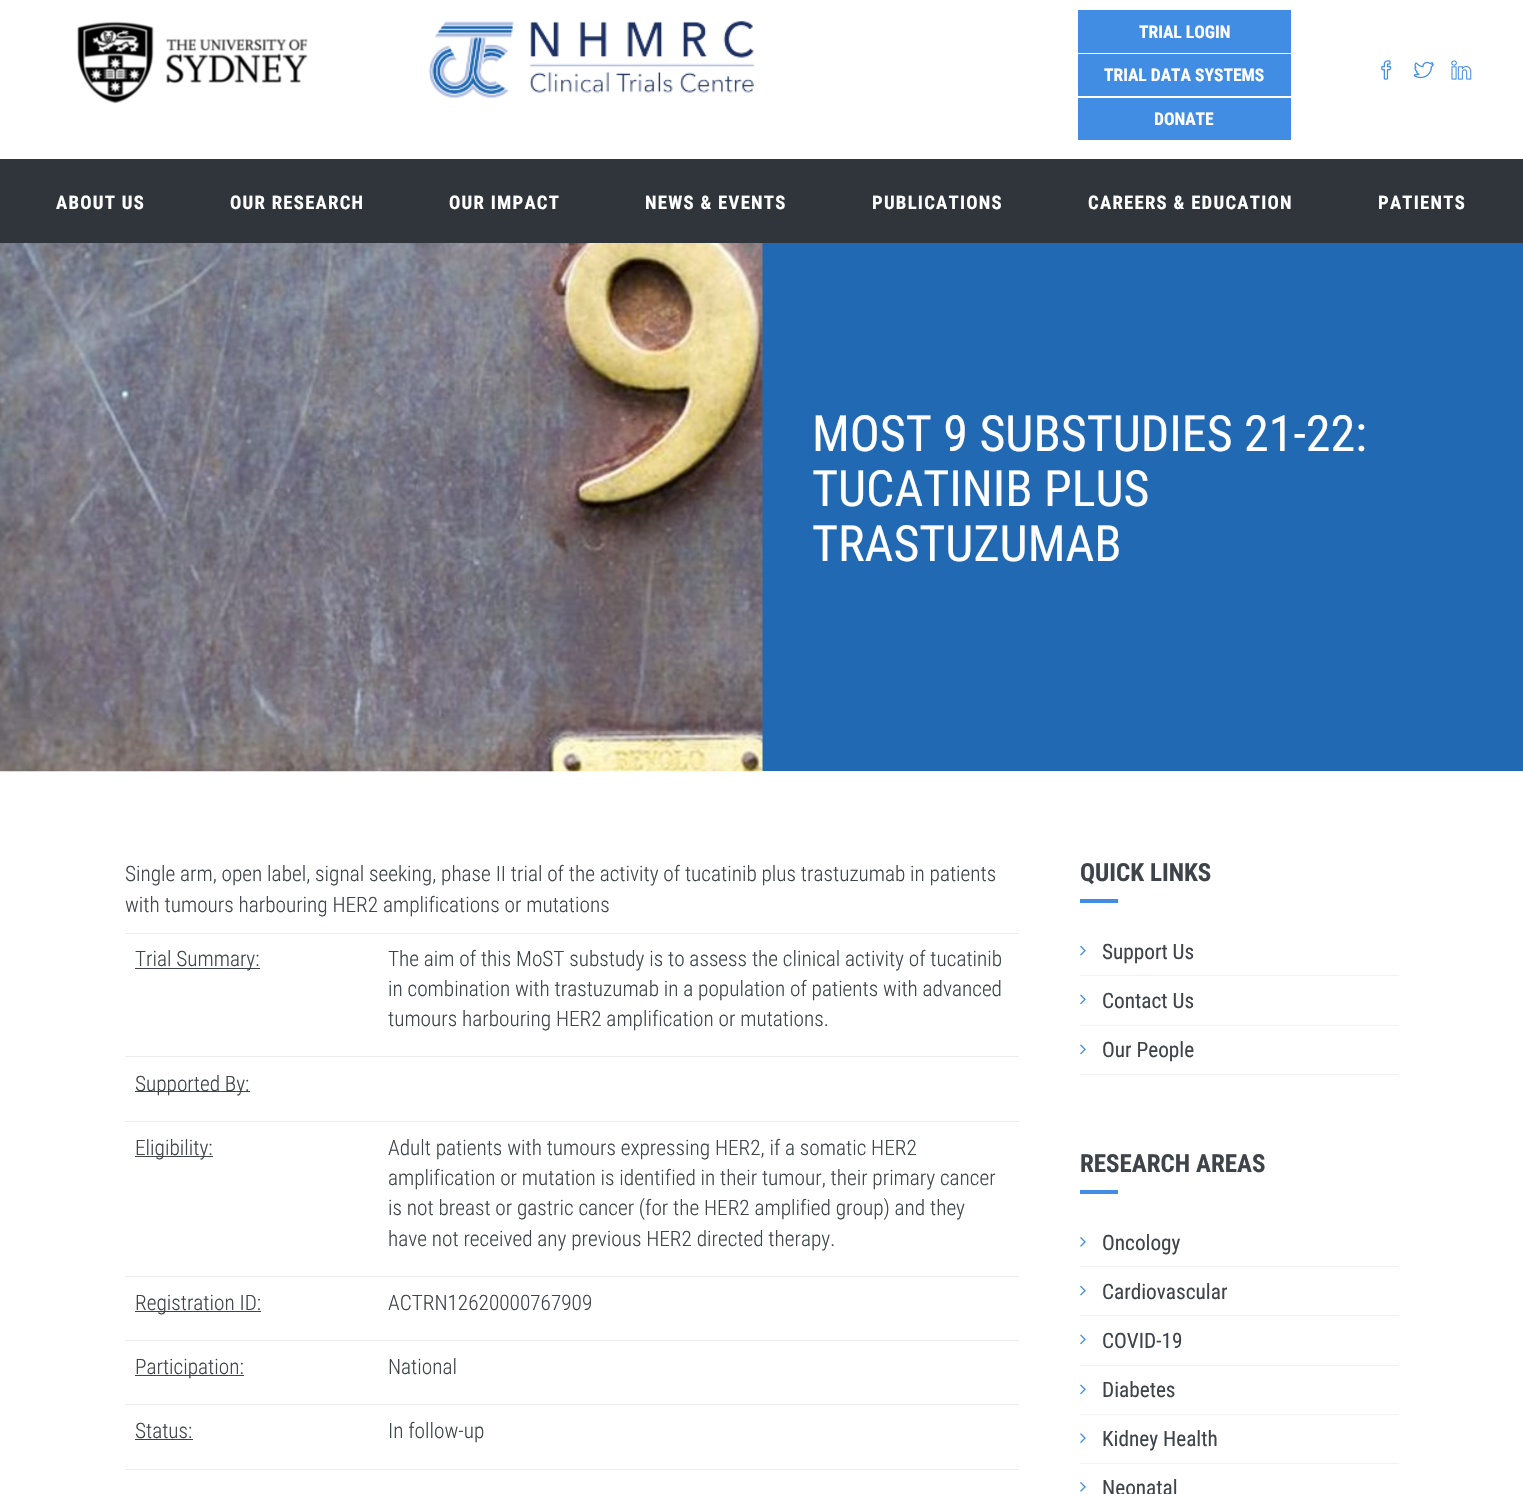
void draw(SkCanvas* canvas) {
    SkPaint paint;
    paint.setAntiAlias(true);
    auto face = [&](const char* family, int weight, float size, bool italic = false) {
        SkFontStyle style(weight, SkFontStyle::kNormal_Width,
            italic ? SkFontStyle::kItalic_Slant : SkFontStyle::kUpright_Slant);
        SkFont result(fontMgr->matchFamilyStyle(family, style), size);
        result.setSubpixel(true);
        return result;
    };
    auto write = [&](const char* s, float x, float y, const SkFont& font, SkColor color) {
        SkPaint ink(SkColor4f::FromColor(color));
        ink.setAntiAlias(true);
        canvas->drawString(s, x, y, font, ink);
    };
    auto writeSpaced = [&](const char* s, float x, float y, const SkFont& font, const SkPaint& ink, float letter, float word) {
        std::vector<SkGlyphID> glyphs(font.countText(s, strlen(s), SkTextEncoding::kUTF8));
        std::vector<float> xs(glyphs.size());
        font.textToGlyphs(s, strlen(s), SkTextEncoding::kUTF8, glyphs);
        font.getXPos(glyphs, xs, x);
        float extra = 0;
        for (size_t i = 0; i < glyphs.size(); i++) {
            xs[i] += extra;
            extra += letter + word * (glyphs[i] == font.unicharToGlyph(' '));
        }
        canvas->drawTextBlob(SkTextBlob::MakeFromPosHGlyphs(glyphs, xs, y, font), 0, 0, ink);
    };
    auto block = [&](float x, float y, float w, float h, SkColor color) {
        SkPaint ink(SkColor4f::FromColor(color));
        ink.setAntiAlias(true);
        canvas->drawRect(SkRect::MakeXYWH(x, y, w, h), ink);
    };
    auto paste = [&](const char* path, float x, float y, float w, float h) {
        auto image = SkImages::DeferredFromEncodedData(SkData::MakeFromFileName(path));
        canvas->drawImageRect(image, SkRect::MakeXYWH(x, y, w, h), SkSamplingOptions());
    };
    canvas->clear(SK_ColorWHITE);
    block(0, 159, 1523, 84, SkColorSetRGB(47, 53, 59));
    paste("pic1.png", 77, 21, 231, 83);
    paste("pic2.png", 428, 21, 327, 77);
    block(1078, 10, 213, 43, SkColorSetRGB(66, 141, 228));
    auto kFont1 = face("Roboto Condensed", 700, 17.5f);
    write("TRIAL LOGIN", 1139, 38, kFont1, SK_ColorWHITE);
    block(1078, 54, 213, 42, SkColorSetRGB(66, 141, 228));
    write("TRIAL DATA SYSTEMS", 1104, 81, kFont1, SK_ColorWHITE);
    paste("pic3.png", 1381, 60, 11, 20);
    paste("pic4.png", 1413, 61, 21, 18);
    paste("pic5.png", 1451, 60, 21, 20);
    block(1078, 98, 213, 42, SkColorSetRGB(66, 141, 228));
    write("DONATE", 1154, 125, kFont1, SK_ColorWHITE);
    auto kFont2 = face("Roboto Condensed", 700, 18.75f);
    paint.setColor(SK_ColorWHITE);
    writeSpaced("ABOUT US", 56, 209, kFont2, paint, 1.25f, 0);
    writeSpaced("OUR RESEARCH", 230, 209, kFont2, paint, 1.25f, 0);
    writeSpaced("OUR IMPACT", 449, 209, kFont2, paint, 1.25f, 0);
    writeSpaced("NEWS & EVENTS", 645, 209, kFont2, paint, 1.25f, 0);
    writeSpaced("PUBLICATIONS", 872, 209, kFont2, paint, 1.25f, 0);
    writeSpaced("CAREERS & EDUCATION", 1088, 209, kFont2, paint, 1.25f, 0);
    writeSpaced("PATIENTS", 1378, 209, kFont2, paint, 1.25f, 0);
    block(762, 243, 761, 528, SkColorSetRGB(33, 105, 179));
    paste("pic6.png", 0, 243, 763, 529);
    auto kFont3 = face("Roboto Condensed", 400, 50);
    write("MOST 9 SUBSTUDIES 21-22:", 812, 451, kFont3, SK_ColorWHITE);
    write("TUCATINIB PLUS", 812, 506, kFont3, SK_ColorWHITE);
    write("TRASTUZUMAB", 812, 561, kFont3, SK_ColorWHITE);
    auto kFont4 = face("Roboto Condensed", 300, 21.25f);
    write("Single arm, open label, signal seeking, phase II trial of the activity of tucatinib plus trastuzumab in patients", 125, 881, kFont4, SkColorSetRGB(63, 68, 74));
    write("with tumours harbouring HER2 amplifications or mutations", 125, 912, kFont4, SkColorSetRGB(63, 68, 74));
    block(135, 968, 125, 1, SkColorSetRGB(63, 68, 74));
    write("Trial Summary:", 135, 966, kFont4, SkColorSetRGB(63, 68, 74));
    block(125, 933, 894, 1, SkColorSetRGB(238, 238, 238));
    write("The aim of this MoST substudy is to assess the clinical activity of tucatinib", 388, 966, kFont4, SkColorSetRGB(63, 68, 74));
    write("in combination with trastuzumab in a population of patients with advanced", 388, 996, kFont4, SkColorSetRGB(63, 68, 74));
    write("tumours harbouring HER2 amplification or mutations.", 388, 1026, kFont4, SkColorSetRGB(63, 68, 74));
    block(125, 1056, 894, 1, SkColorSetRGB(238, 238, 238));
    block(135, 1091, 115, 1, SkColorSetRGB(63, 68, 74));
    write("Supported By:", 135, 1091, kFont4, SkColorSetRGB(63, 68, 74));
    block(135, 1156, 78, 1, SkColorSetRGB(63, 68, 74));
    write("Eligibility:", 135, 1155, kFont4, SkColorSetRGB(63, 68, 74));
    block(125, 1121, 894, 1, SkColorSetRGB(238, 238, 238));
    write("Adult patients with tumours expressing HER2, if a somatic HER2", 388, 1155, kFont4, SkColorSetRGB(63, 68, 74));
    write("amplification or mutation is identified in their tumour, their primary cancer", 388, 1185, kFont4, SkColorSetRGB(63, 68, 74));
    write("is not breast or gastric cancer (for the HER2 amplified group) and they", 388, 1215, kFont4, SkColorSetRGB(63, 68, 74));
    write("have not received any previous HER2 directed therapy.", 388, 1246, kFont4, SkColorSetRGB(63, 68, 74));
    block(135, 1311, 126, 1, SkColorSetRGB(63, 68, 74));
    write("Registration ID:", 135, 1310, kFont4, SkColorSetRGB(63, 68, 74));
    block(125, 1276, 894, 1, SkColorSetRGB(238, 238, 238));
    write("ACTRN12620000767909", 388, 1310, kFont4, SkColorSetRGB(63, 68, 74));
    block(135, 1375, 109, 1, SkColorSetRGB(63, 68, 74));
    write("Participation:", 135, 1374, kFont4, SkColorSetRGB(63, 68, 74));
    block(125, 1340, 894, 1, SkColorSetRGB(238, 238, 238));
    write("National", 388, 1374, kFont4, SkColorSetRGB(63, 68, 74));
    write("Status:", 135, 1438, kFont4, SkColorSetRGB(63, 68, 74));
    block(135, 1439, 58, 1, SkColorSetRGB(63, 68, 74));
    block(125, 1404, 894, 1, SkColorSetRGB(238, 238, 238));
    write("In follow-up", 388, 1438, kFont4, SkColorSetRGB(63, 68, 74));
    block(125, 1469, 894, 1, SkColorSetRGB(238, 238, 238));
    auto kFont5 = face("Roboto Condensed", 700, 25);
    write("QUICK LINKS", 1080, 881, kFont5, SkColorSetRGB(63, 68, 74));
    block(1080, 899, 38, 4, SkColorSetRGB(66, 141, 228));
    block(1080, 975, 319, 1, SkColorSetRGB(242, 242, 242));
    paste("pic7.png", 1080, 945, 6, 11);
    auto kFont6 = face("Roboto Condensed", 400, 21.25f);
    write("Support Us", 1102, 959, kFont6, SkColorSetRGB(63, 68, 74));
    block(1080, 1025, 319, 1, SkColorSetRGB(242, 242, 242));
    paste("pic8.png", 1080, 994, 6, 11);
    write("Contact Us", 1102, 1008, kFont6, SkColorSetRGB(63, 68, 74));
    block(1080, 1074, 319, 1, SkColorSetRGB(242, 242, 242));
    paste("pic8.png", 1080, 1044, 6, 11);
    write("Our People", 1102, 1057, kFont6, SkColorSetRGB(63, 68, 74));
    write("RESEARCH AREAS", 1080, 1172, kFont5, SkColorSetRGB(63, 68, 74));
    block(1080, 1190, 38, 4, SkColorSetRGB(66, 141, 228));
    block(1080, 1266, 319, 1, SkColorSetRGB(242, 242, 242));
    paste("pic9.png", 1080, 1237, 6, 10);
    write("Oncology", 1102, 1250, kFont6, SkColorSetRGB(63, 68, 74));
    block(1080, 1315, 319, 1, SkColorSetRGB(242, 242, 242));
    paste("pic7.png", 1080, 1285, 6, 11);
    write("Cardiovascular", 1102, 1299, kFont6, SkColorSetRGB(63, 68, 74));
    block(1080, 1365, 319, 1, SkColorSetRGB(242, 242, 242));
    paste("pic8.png", 1080, 1334, 6, 11);
    write("COVID-19", 1102, 1348, kFont6, SkColorSetRGB(63, 68, 74));
    block(1080, 1414, 319, 1, SkColorSetRGB(242, 242, 242));
    paste("pic8.png", 1080, 1384, 6, 11);
    write("Diabetes", 1102, 1397, kFont6, SkColorSetRGB(63, 68, 74));
    block(1080, 1463, 319, 1, SkColorSetRGB(242, 242, 242));
    paste("pic10.png", 1080, 1433, 6, 10);
    write("Kidney Health", 1102, 1446, kFont6, SkColorSetRGB(63, 68, 74));
    paste("pic9.png", 1080, 1482, 6, 10);
    write("Neonatal", 1102, 1495, kFont6, SkColorSetRGB(63, 68, 74));
}
